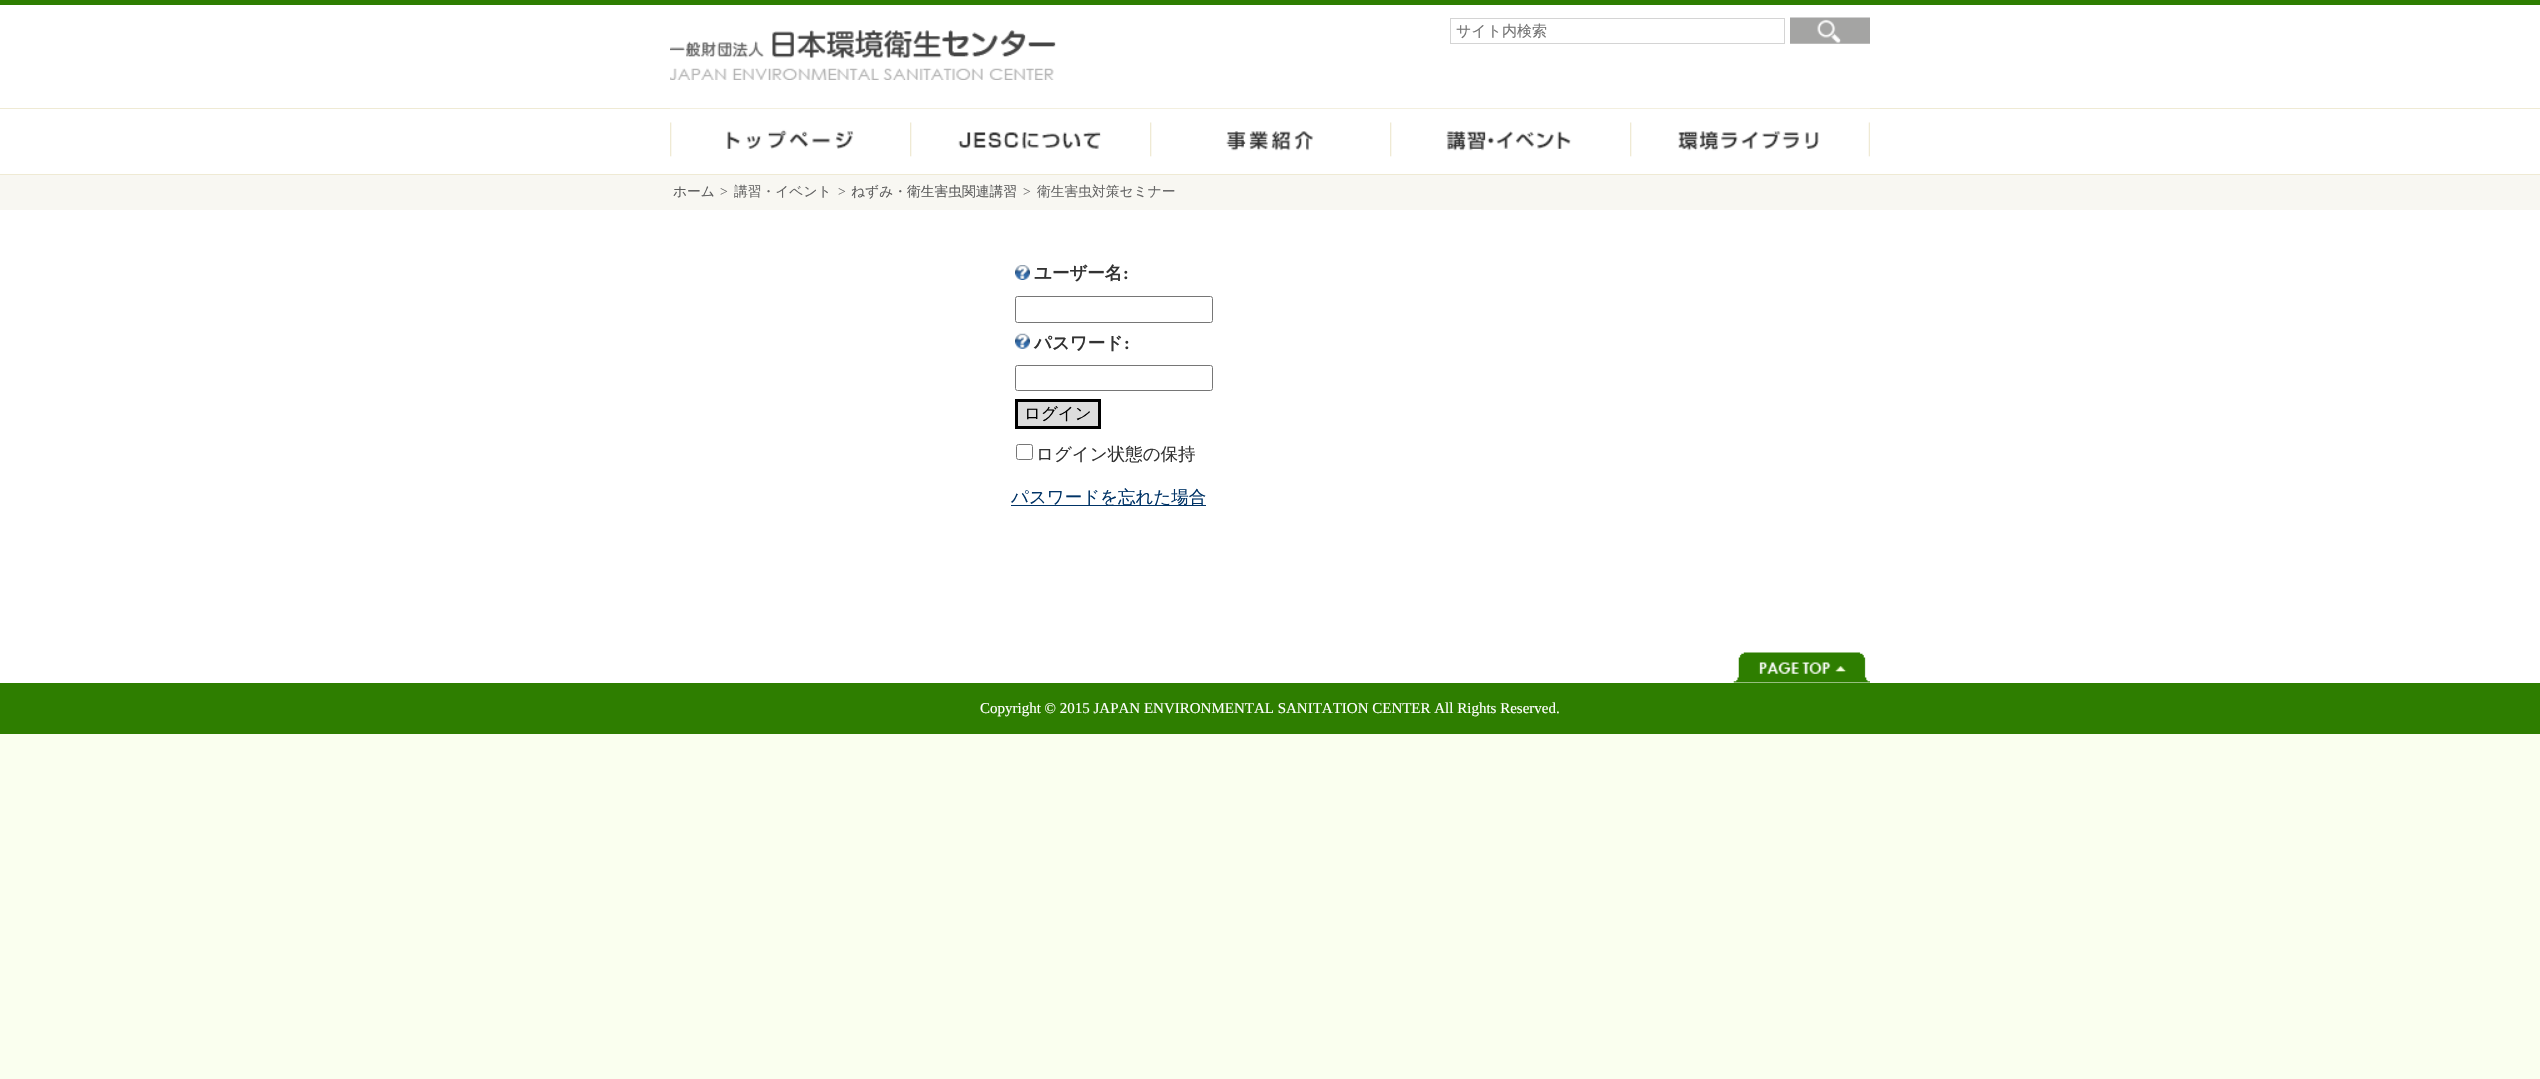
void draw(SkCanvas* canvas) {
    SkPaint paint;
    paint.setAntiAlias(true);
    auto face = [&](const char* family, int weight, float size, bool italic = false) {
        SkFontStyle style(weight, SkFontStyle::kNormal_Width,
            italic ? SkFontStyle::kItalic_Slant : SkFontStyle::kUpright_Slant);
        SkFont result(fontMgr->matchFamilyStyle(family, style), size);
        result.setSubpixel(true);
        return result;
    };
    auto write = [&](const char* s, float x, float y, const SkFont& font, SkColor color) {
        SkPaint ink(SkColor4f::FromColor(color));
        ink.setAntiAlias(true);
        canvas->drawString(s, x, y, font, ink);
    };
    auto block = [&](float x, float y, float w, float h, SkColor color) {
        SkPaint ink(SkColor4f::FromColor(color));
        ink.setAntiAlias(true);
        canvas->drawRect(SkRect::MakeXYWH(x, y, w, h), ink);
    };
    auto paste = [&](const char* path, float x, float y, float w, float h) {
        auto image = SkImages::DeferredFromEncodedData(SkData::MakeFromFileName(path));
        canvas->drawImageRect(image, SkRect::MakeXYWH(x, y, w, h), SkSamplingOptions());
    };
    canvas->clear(SK_ColorWHITE);
    block(0, 0, 2540, 5, SkColorSetRGB(46, 126, 1));
    paste("pic1.png", 670, 30, 386, 50);
    paint.setStyle(SkPaint::kStroke_Style);
    paint.setStrokeWidth(1);
    paint.setColor(SkColorSetRGB(212, 212, 212));
    canvas->drawRect(SkRect::MakeXYWH(1450.5f, 18.5f, 334, 25), paint);
    paste("pic2.png", 1790, 17, 80, 27);
    auto kFont1 = face("WenQuanYi Zen Hei", 500, 15);
    write("サイト内検索", 1456, 36, kFont1, SkColorSetRGB(116, 116, 116));
    block(0, 108, 2540, 1, SkColorSetRGB(239, 234, 212));
    block(0, 174, 2540, 1, SkColorSetRGB(239, 234, 212));
    paste("pic3.png", 670, 108, 240, 49);
    paste("pic4.png", 910, 108, 240, 49);
    paste("pic5.png", 1150, 108, 240, 49);
    paste("pic6.png", 1390, 108, 240, 49);
    paste("pic7.png", 1630, 108, 240, 49);
    block(0, 175, 2540, 35, SkColorSetRGB(248, 247, 242));
    auto kFont2 = face("WenQuanYi Zen Hei", 500, 13.75f);
    write("ホーム", 673, 196, kFont2, SkColorSetRGB(93, 93, 93));
    auto kFont3 = face("Liberation Serif", 400, 13.75f);
    write(">", 720, 196, kFont3, SkColorSetRGB(102, 102, 102));
    write("講習・イベント", 734, 196, kFont2, SkColorSetRGB(102, 102, 102));
    write(">", 838, 196, kFont3, SkColorSetRGB(102, 102, 102));
    write("ねずみ・衛生害虫関連講習", 851, 196, kFont2, SkColorSetRGB(93, 93, 93));
    write(">", 1023, 196, kFont3, SkColorSetRGB(102, 102, 102));
    write("衛生害虫対策セミナー", 1037, 196, kFont2, SkColorSetRGB(102, 102, 102));
    paste("pic8.png", 1015, 265, 15, 15);
    auto kFont4 = face("WenQuanYi Zen Hei", 700, 17.5f);
    write("ユーザー名", 1034, 279, kFont4, SkColorSetRGB(51, 51, 51));
    auto kFont5 = face("Liberation Serif", 700, 17.5f);
    write(":", 1123, 279, kFont5, SkColorSetRGB(51, 51, 51));
    paint.setColor(SkColorSetRGB(118, 118, 118));
    canvas->drawRoundRect(SkRect::MakeXYWH(1015.5f, 296.5f, 197, 26), 2, 2, paint);
    paste("pic9.png", 1015, 333, 15, 16);
    write("パスワード", 1034, 349, kFont4, SkColorSetRGB(51, 51, 51));
    write(":", 1124, 349, kFont5, SkColorSetRGB(51, 51, 51));
    canvas->drawRoundRect(SkRect::MakeXYWH(1015.5f, 365.5f, 197, 25), 2, 2, paint);
    paint.setStyle(SkPaint::kFill_Style);
    paint.setColor(SkColorSetRGB(221, 221, 221));
    canvas->drawRect(SkRect::MakeXYWH(1016.5f, 400.5f, 83, 27), paint);
    paint.setStyle(SkPaint::kStroke_Style);
    paint.setStrokeWidth(3);
    paint.setColor(SK_ColorBLACK);
    canvas->drawRect(SkRect::MakeXYWH(1016.5f, 400.5f, 83, 27), paint);
    auto kFont6 = face("WenQuanYi Zen Hei", 500, 16.5f);
    write("ログイン", 1024, 419, kFont6, SK_ColorBLACK);
    paint.setStrokeWidth(1);
    paint.setColor(SkColorSetRGB(118, 118, 118));
    canvas->drawRoundRect(SkRect::MakeXYWH(1016.5f, 444.5f, 16, 15), 2, 2, paint);
    auto kFont7 = face("WenQuanYi Zen Hei", 500, 17.5f);
    write("ログイン状態の保持", 1036, 460, kFont7, SkColorSetRGB(51, 51, 51));
    block(1011, 505, 195, 1, SkColorSetRGB(0, 51, 102));
    write("パスワードを忘れた場合", 1011, 503, kFont7, SkColorSetRGB(0, 51, 102));
    block(0, 683, 2540, 51, SkColorSetRGB(46, 126, 0));
    paste("pic10.png", 1733, 652, 137, 31);
    block(0, 734, 2540, 345, SkColorSetRGB(250, 255, 239));
    auto kFont8 = face("Liberation Serif", 400, 15);
    write("Copyright © 2015 JAPAN ENVIRONMENTAL SANITATION CENTER All Rights Reserved.", 980, 713, kFont8, SK_ColorWHITE);
}
